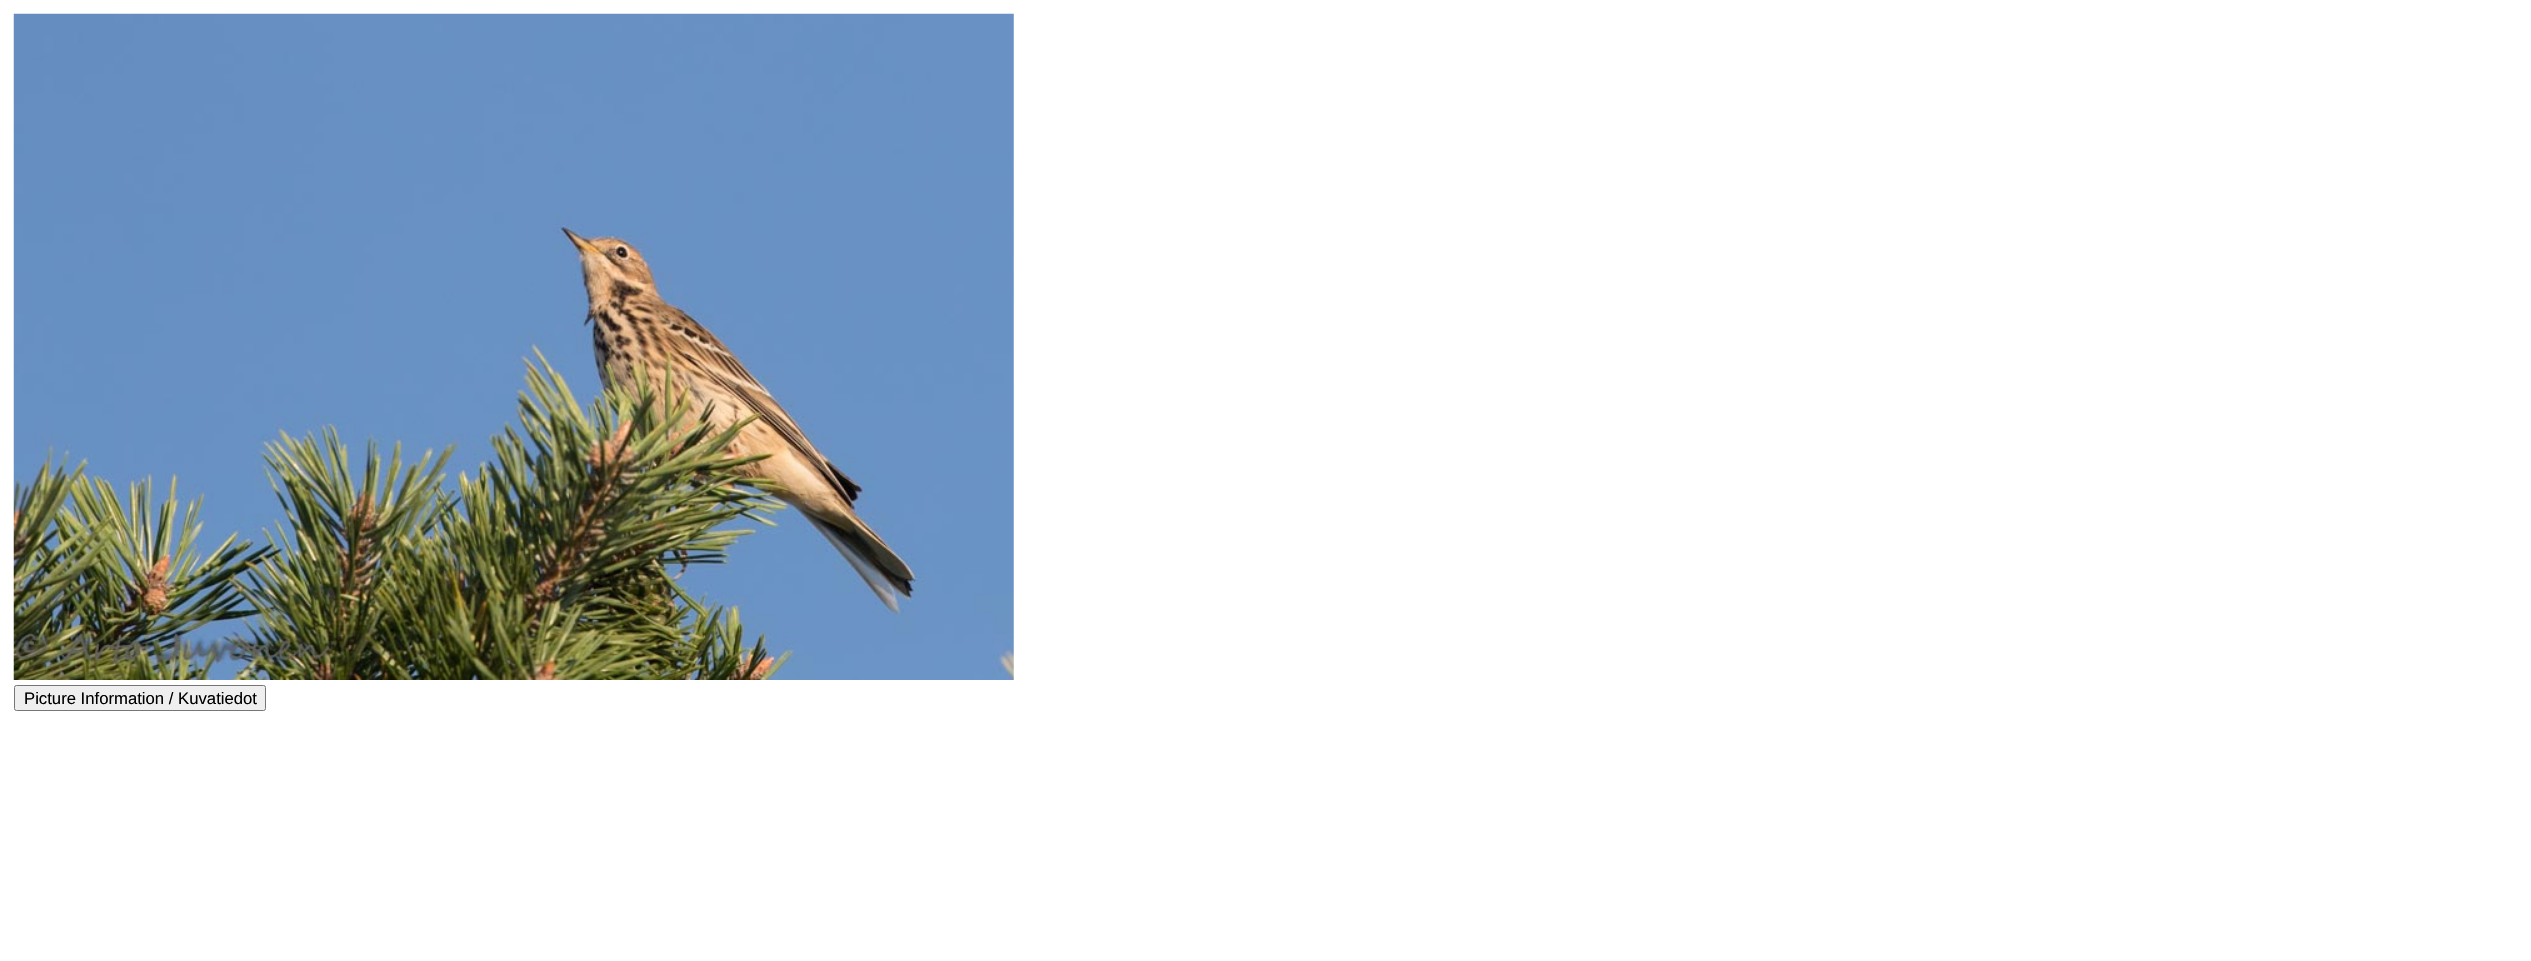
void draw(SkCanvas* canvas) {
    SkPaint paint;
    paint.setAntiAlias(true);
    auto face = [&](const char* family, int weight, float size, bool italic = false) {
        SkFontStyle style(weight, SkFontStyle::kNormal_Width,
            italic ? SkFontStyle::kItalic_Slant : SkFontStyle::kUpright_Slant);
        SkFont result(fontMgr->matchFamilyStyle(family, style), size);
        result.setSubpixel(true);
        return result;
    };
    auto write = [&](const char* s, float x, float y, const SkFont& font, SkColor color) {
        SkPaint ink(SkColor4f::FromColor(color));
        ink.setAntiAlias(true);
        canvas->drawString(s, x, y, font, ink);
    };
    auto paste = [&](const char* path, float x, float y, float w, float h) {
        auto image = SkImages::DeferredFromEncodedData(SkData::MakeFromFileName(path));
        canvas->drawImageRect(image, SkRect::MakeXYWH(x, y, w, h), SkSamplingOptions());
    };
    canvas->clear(SK_ColorWHITE);
    paste("pic1.png", 13, 13, 1001, 667);
    paint.setColor(SkColorSetRGB(239, 239, 239));
    canvas->drawRoundRect(SkRect::MakeXYWH(14.5f, 685.5f, 251, 25), 2, 2, paint);
    paint.setStyle(SkPaint::kStroke_Style);
    paint.setStrokeWidth(1);
    paint.setColor(SkColorSetRGB(118, 118, 118));
    canvas->drawRoundRect(SkRect::MakeXYWH(14.5f, 685.5f, 251, 25), 2, 2, paint);
    auto kFont1 = face("Liberation Sans", 400, 16.7f);
    write("Picture Information / Kuvatiedot", 24, 704, kFont1, SK_ColorBLACK);
}
